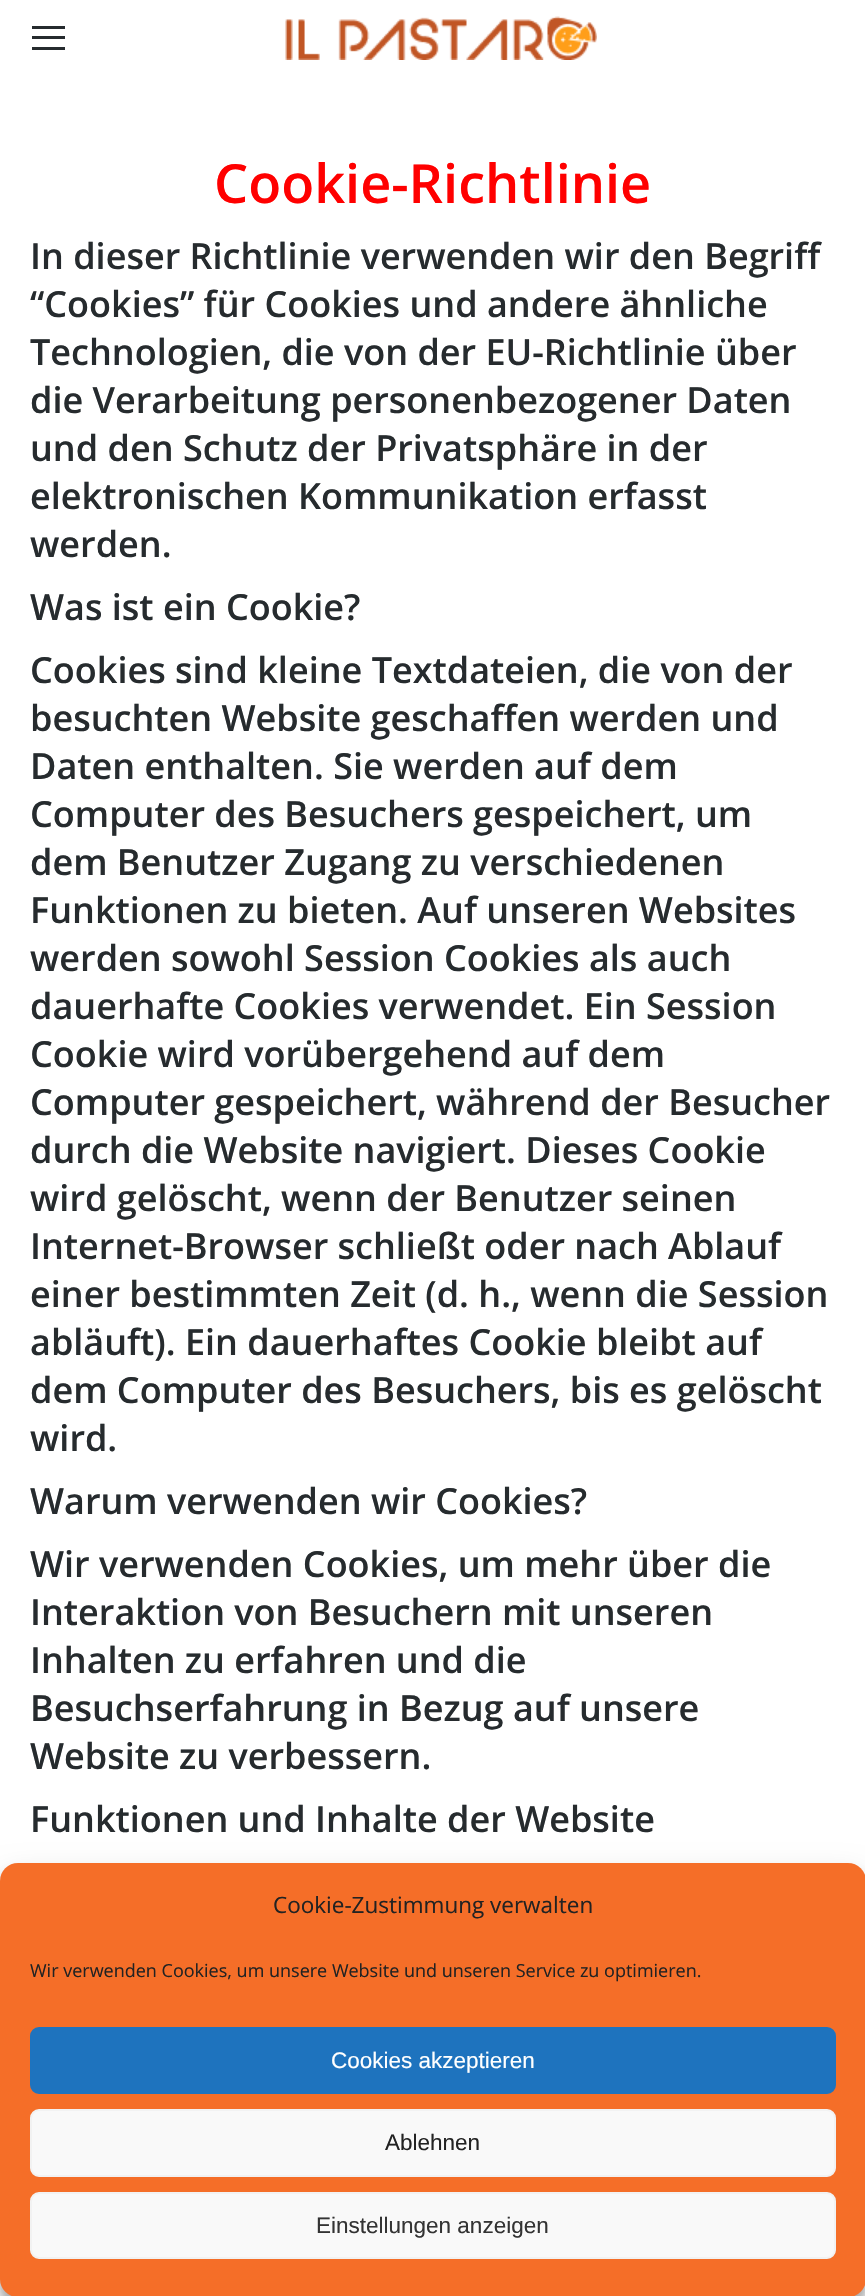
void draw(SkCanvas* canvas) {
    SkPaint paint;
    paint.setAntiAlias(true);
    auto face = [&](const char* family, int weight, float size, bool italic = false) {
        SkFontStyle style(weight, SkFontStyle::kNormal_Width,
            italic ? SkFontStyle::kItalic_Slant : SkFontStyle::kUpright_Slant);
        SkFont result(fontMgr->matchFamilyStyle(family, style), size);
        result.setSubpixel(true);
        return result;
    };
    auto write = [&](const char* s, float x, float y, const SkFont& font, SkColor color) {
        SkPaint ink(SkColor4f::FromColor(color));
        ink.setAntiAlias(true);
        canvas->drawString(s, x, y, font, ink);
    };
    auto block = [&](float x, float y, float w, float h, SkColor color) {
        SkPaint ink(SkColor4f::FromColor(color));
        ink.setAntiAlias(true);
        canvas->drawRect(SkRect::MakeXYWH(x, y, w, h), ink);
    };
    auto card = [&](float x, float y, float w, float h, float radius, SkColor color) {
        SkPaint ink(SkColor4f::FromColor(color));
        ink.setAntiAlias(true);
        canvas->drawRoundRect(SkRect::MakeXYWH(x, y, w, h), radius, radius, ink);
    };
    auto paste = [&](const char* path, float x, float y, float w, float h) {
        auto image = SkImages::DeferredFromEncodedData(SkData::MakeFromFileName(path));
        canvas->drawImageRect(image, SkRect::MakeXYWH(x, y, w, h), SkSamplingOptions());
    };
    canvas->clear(SK_ColorWHITE);
    block(32, 26, 33, 3, SkColorSetRGB(38, 43, 46));
    block(32, 36, 33, 3, SkColorSetRGB(38, 43, 46));
    block(32, 47, 33, 3, SkColorSetRGB(38, 43, 46));
    paste("pic1.png", 285, 16, 312, 44);
    auto kFont1 = face("Open Sans", 600, 54);
    write("Cookie-Richtlinie", 214, 203, kFont1, SkColorSetRGB(255, 0, 0));
    auto kFont2 = face("Open Sans", 600, 36);
    write("In dieser Richtlinie verwenden wir den Begriff", 30, 269, kFont2, SkColorSetRGB(38, 43, 46));
    write("“Cookies” für Cookies und andere ähnliche", 30, 317, kFont2, SkColorSetRGB(38, 43, 46));
    write("Technologien, die von der EU-Richtlinie über", 30, 365, kFont2, SkColorSetRGB(38, 43, 46));
    write("die Verarbeitung personenbezogener Daten", 30, 413, kFont2, SkColorSetRGB(38, 43, 46));
    write("und den Schutz der Privatsphäre in der", 30, 461, kFont2, SkColorSetRGB(38, 43, 46));
    write("elektronischen Kommunikation erfasst", 30, 509, kFont2, SkColorSetRGB(38, 43, 46));
    write("werden.", 30, 557, kFont2, SkColorSetRGB(38, 43, 46));
    write("Was ist ein Cookie?", 30, 620, kFont2, SkColorSetRGB(38, 43, 46));
    write("Cookies sind kleine Textdateien, die von der", 30, 683, kFont2, SkColorSetRGB(38, 43, 46));
    write("besuchten Website geschaffen werden und", 30, 731, kFont2, SkColorSetRGB(38, 43, 46));
    write("Daten enthalten. Sie werden auf dem", 30, 779, kFont2, SkColorSetRGB(38, 43, 46));
    write("Computer des Besuchers gespeichert, um", 30, 827, kFont2, SkColorSetRGB(38, 43, 46));
    write("dem Benutzer Zugang zu verschiedenen", 30, 875, kFont2, SkColorSetRGB(38, 43, 46));
    write("Funktionen zu bieten. Auf unseren Websites", 30, 923, kFont2, SkColorSetRGB(38, 43, 46));
    write("werden sowohl Session Cookies als auch", 30, 971, kFont2, SkColorSetRGB(38, 43, 46));
    write("dauerhafte Cookies verwendet. Ein Session", 30, 1019, kFont2, SkColorSetRGB(38, 43, 46));
    write("Cookie wird vorübergehend auf dem", 30, 1067, kFont2, SkColorSetRGB(38, 43, 46));
    write("Computer gespeichert, während der Besucher", 30, 1115, kFont2, SkColorSetRGB(38, 43, 46));
    write("durch die Website navigiert. Dieses Cookie", 30, 1163, kFont2, SkColorSetRGB(38, 43, 46));
    write("wird gelöscht, wenn der Benutzer seinen", 30, 1211, kFont2, SkColorSetRGB(38, 43, 46));
    write("Internet-Browser schließt oder nach Ablauf", 30, 1259, kFont2, SkColorSetRGB(38, 43, 46));
    write("einer bestimmten Zeit (d. h., wenn die Session", 30, 1307, kFont2, SkColorSetRGB(38, 43, 46));
    write("abläuft). Ein dauerhaftes Cookie bleibt auf", 30, 1355, kFont2, SkColorSetRGB(38, 43, 46));
    write("dem Computer des Besuchers, bis es gelöscht", 30, 1403, kFont2, SkColorSetRGB(38, 43, 46));
    write("wird.", 30, 1451, kFont2, SkColorSetRGB(38, 43, 46));
    write("Warum verwenden wir Cookies?", 30, 1514, kFont2, SkColorSetRGB(38, 43, 46));
    write("Wir verwenden Cookies, um mehr über die", 30, 1577, kFont2, SkColorSetRGB(38, 43, 46));
    write("Interaktion von Besuchern mit unseren", 30, 1625, kFont2, SkColorSetRGB(38, 43, 46));
    write("Inhalten zu erfahren und die", 30, 1673, kFont2, SkColorSetRGB(38, 43, 46));
    write("Besuchserfahrung in Bezug auf unsere", 30, 1721, kFont2, SkColorSetRGB(38, 43, 46));
    write("Website zu verbessern.", 30, 1769, kFont2, SkColorSetRGB(38, 43, 46));
    write("Funktionen und Inhalte der Website", 30, 1832, kFont2, SkColorSetRGB(38, 43, 46));
    paint.setColor(SkColorSetARGB(59, 0, 0, 0));
    paint.setMaskFilter(SkMaskFilter::MakeBlur(kNormal_SkBlurStyle, 4.5f));
    canvas->drawRoundRect(SkRect::MakeXYWH(0, 1872, 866, 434), 18, 18, paint);
    paint.setMaskFilter(nullptr);
    paint.setColor(SkColorSetARGB(48, 0, 0, 0));
    paint.setMaskFilter(SkMaskFilter::MakeBlur(kNormal_SkBlurStyle, 15));
    canvas->drawRoundRect(SkRect::MakeXYWH(0, 1878, 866, 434), 18, 18, paint);
    paint.setMaskFilter(nullptr);
    card(0, 1863, 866, 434, 18, SkColorSetRGB(245, 110, 40));
    auto kFont3 = face("Open Sans", 400, 22.5f);
    write("Cookie-Zustimmung verwalten", 273, 1913, kFont3, SkColorSetRGB(34, 34, 34));
    auto kFont4 = face("Open Sans", 400, 18);
    write("Wir verwenden Cookies, um unsere Website und unseren Service zu optimieren.", 30, 1977, kFont4, SkColorSetRGB(34, 34, 34));
    paint.setColor(SkColorSetRGB(30, 115, 190));
    canvas->drawRoundRect(SkRect::MakeXYWH(31, 2028, 804, 65), 8, 8, paint);
    paint.setStyle(SkPaint::kStroke_Style);
    paint.setStrokeWidth(2);
    canvas->drawRoundRect(SkRect::MakeXYWH(31, 2028, 804, 65), 8, 8, paint);
    auto kFont5 = face("Liberation Sans", 400, 22.5f);
    write("Cookies akzeptieren", 331, 2068, kFont5, SK_ColorWHITE);
    paint.setStyle(SkPaint::kFill_Style);
    paint.setColor(SkColorSetRGB(249, 249, 249));
    canvas->drawRoundRect(SkRect::MakeXYWH(31, 2110, 804, 66), 8, 8, paint);
    paint.setStyle(SkPaint::kStroke_Style);
    paint.setColor(SkColorSetRGB(242, 242, 242));
    canvas->drawRoundRect(SkRect::MakeXYWH(31, 2110, 804, 66), 8, 8, paint);
    write("Ablehnen", 385, 2150, kFont5, SkColorSetRGB(34, 34, 34));
    paint.setStyle(SkPaint::kFill_Style);
    paint.setColor(SkColorSetRGB(249, 249, 249));
    canvas->drawRoundRect(SkRect::MakeXYWH(31, 2193, 804, 65), 8, 8, paint);
    paint.setStyle(SkPaint::kStroke_Style);
    paint.setColor(SkColorSetRGB(242, 242, 242));
    canvas->drawRoundRect(SkRect::MakeXYWH(31, 2193, 804, 65), 8, 8, paint);
    write("Einstellungen anzeigen", 316, 2233, kFont5, SkColorSetRGB(51, 51, 51));
}
